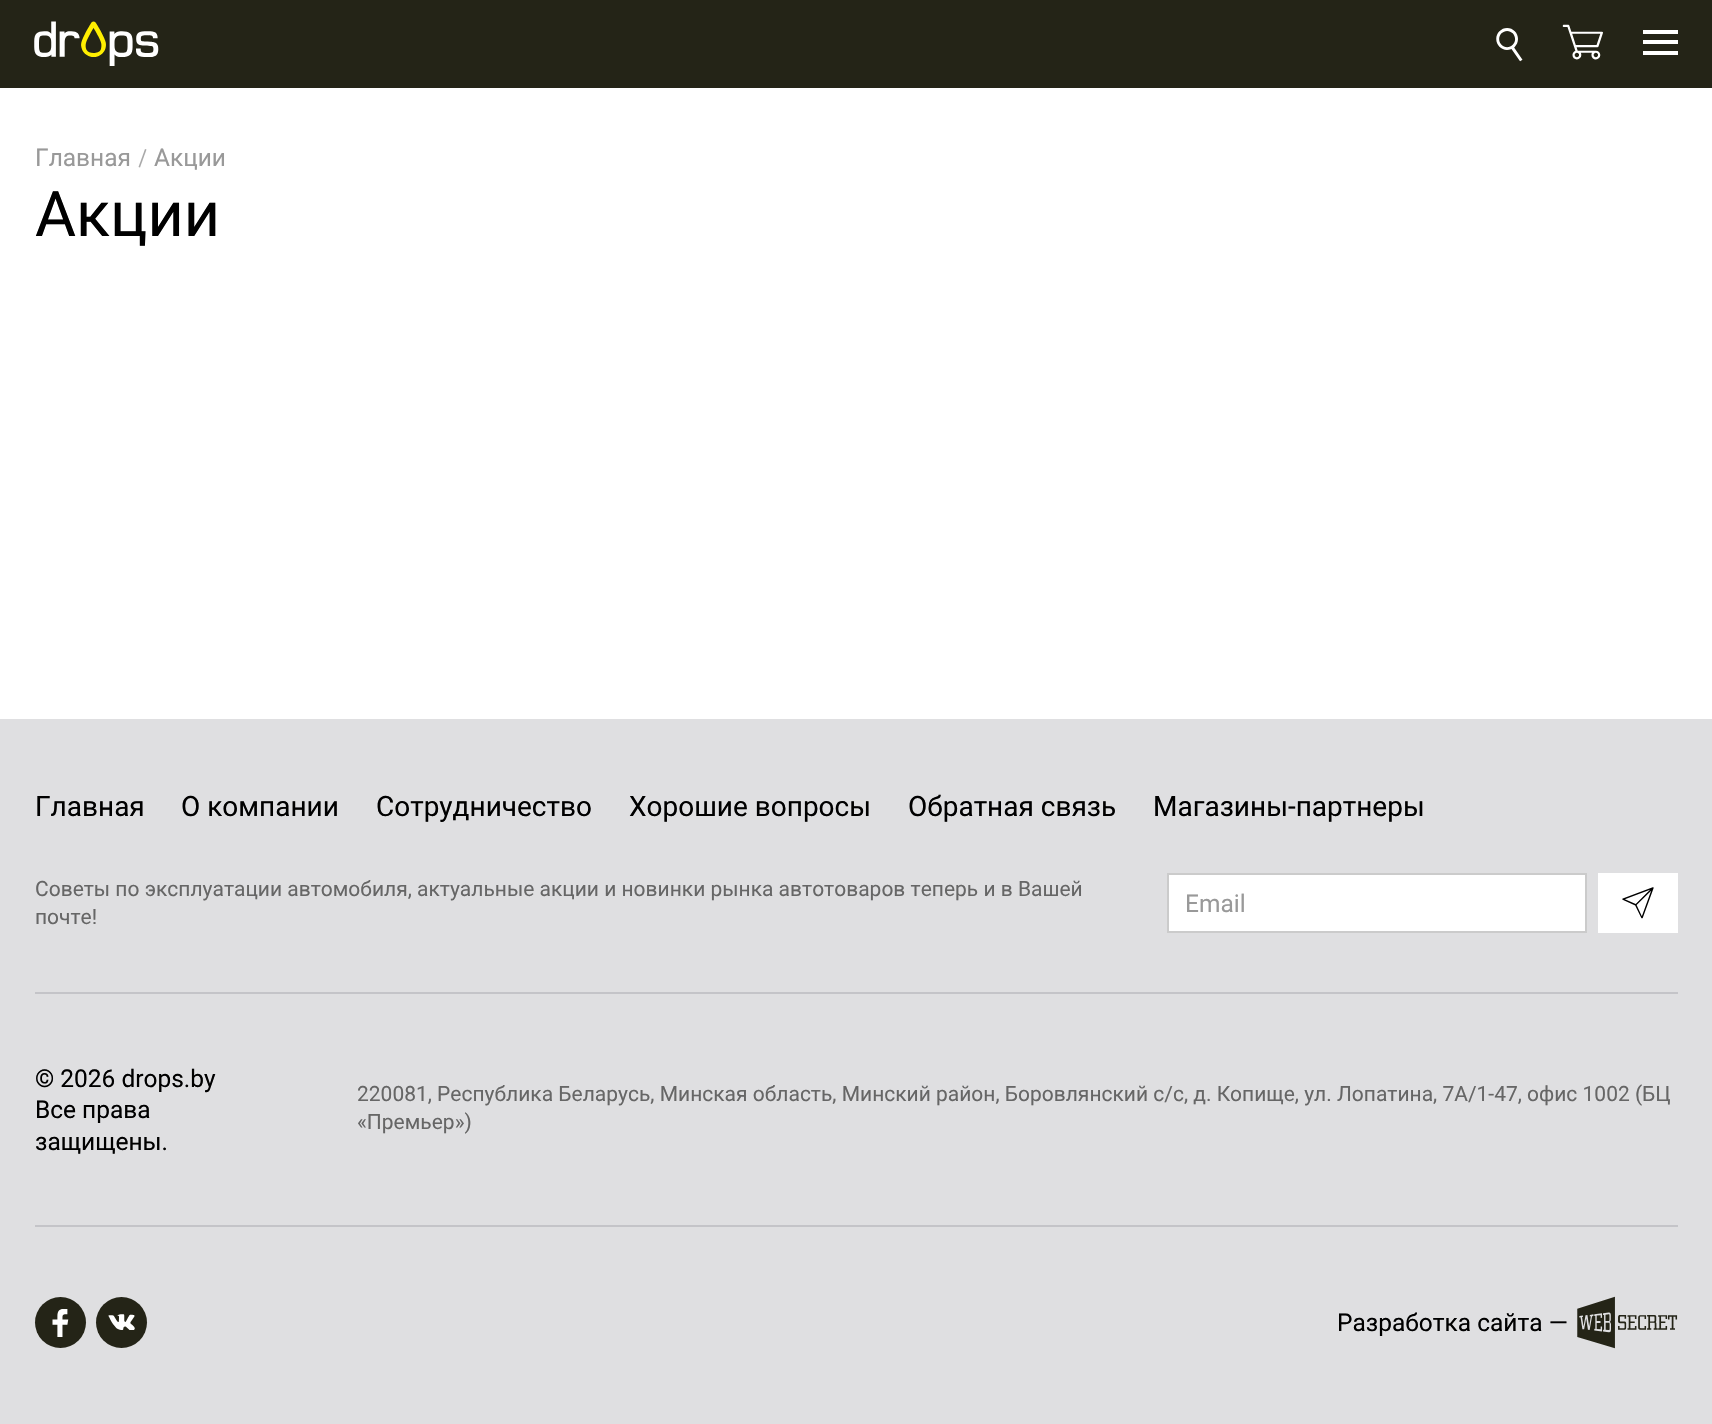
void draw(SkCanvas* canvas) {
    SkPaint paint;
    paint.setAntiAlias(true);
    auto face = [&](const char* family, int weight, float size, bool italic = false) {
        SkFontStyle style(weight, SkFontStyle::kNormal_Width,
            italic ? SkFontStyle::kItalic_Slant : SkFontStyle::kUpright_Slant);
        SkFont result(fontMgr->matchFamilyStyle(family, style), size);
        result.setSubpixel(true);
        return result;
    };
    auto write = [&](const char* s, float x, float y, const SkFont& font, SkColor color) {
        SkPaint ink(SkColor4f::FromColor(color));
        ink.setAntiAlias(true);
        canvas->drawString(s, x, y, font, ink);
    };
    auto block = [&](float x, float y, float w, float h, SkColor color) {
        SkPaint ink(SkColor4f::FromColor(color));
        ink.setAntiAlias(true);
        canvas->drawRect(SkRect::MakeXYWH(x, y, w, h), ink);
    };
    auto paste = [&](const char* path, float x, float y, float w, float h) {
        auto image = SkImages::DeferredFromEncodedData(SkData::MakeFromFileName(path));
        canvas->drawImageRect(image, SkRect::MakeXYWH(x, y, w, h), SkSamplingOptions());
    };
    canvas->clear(SK_ColorWHITE);
    block(0, 0, 1712, 88, SkColorSetRGB(36, 36, 23));
    paste("pic1.png", 34, 21, 125, 45);
    paste("pic2.png", 1496, 28, 27, 34);
    paste("pic3.png", 1562, 24, 41, 36);
    block(1643, 40, 35, 4, SK_ColorWHITE);
    block(1643, 30, 35, 4, SK_ColorWHITE);
    block(1643, 51, 35, 4, SK_ColorWHITE);
    auto kFont1 = face("Roboto", 400, 24.5f);
    write("Главная", 35, 166, kFont1, SkColorSetRGB(153, 153, 153));
    paint.setColor(SkColorSetRGB(169, 169, 169));
    canvas->drawPath(SkPathBuilder().moveTo(138.5f, 167).lineTo(145, 149).lineTo(146.5f, 149.5f).lineTo(140, 167.5f).close().detach(), paint);
    write("Акции", 154, 166, kFont1, SkColorSetRGB(153, 153, 153));
    auto kFont2 = face("Roboto", 400, 63);
    write("Акции", 35, 236, kFont2, SK_ColorBLACK);
    block(0, 719, 1712, 705, SkColorSetRGB(223, 223, 225));
    auto kFont3 = face("Roboto", 400, 28);
    write("Главная", 35, 816, kFont3, SK_ColorBLACK);
    write("О компании", 181, 816, kFont3, SK_ColorBLACK);
    write("Сотрудничество", 376, 816, kFont3, SK_ColorBLACK);
    write("Хорошие вопросы", 629, 816, kFont3, SK_ColorBLACK);
    write("Обратная связь", 908, 816, kFont3, SK_ColorBLACK);
    write("Магазины-партнеры", 1153, 816, kFont3, SK_ColorBLACK);
    auto kFont4 = face("Roboto", 400, 21);
    write("Советы по эксплуатации автомобиля, актуальные акции и новинки рынка автотоваров теперь и в Вашей", 35, 896, kFont4, SkColorSetRGB(102, 102, 102));
    write("почте!", 35, 924, kFont4, SkColorSetRGB(102, 102, 102));
    paint.setColor(SK_ColorWHITE);
    canvas->drawRect(SkRect::MakeXYWH(1168, 874, 418, 58), paint);
    paint.setStyle(SkPaint::kStroke_Style);
    paint.setStrokeWidth(2);
    paint.setColor(SkColorSetRGB(203, 203, 203));
    canvas->drawRect(SkRect::MakeXYWH(1168, 874, 418, 58), paint);
    write("Email", 1185, 912, kFont1, SkColorSetRGB(153, 153, 153));
    block(1598, 873, 80, 60, SK_ColorWHITE);
    paste("pic4.png", 1622, 887, 32, 32);
    block(35, 992, 1643, 2, SkColorSetRGB(196, 196, 200));
    block(35, 1225, 1643, 2, SkColorSetRGB(196, 196, 200));
    write("© 2026 drops.by", 35, 1087, kFont1, SK_ColorBLACK);
    write("Все права", 35, 1118, kFont1, SK_ColorBLACK);
    write("защищены.", 35, 1150, kFont1, SK_ColorBLACK);
    write("220081, Республика Беларусь, Минская область, Минский район, Боровлянский с/с, д. Копище, ул. Лопатина, 7А/1-47, офис 1002 (БЦ", 357, 1101, kFont4, SkColorSetRGB(102, 102, 102));
    write("«Премьер»)", 357, 1129, kFont4, SkColorSetRGB(102, 102, 102));
    paint.setStyle(SkPaint::kFill_Style);
    paint.setColor(SkColorSetRGB(36, 36, 23));
    canvas->drawCircle(60.5f, 1322.5f, 25.5f, paint);
    paste("pic5.png", 52, 1309, 17, 28);
    canvas->drawCircle(121.5f, 1322.5f, 25.5f, paint);
    paste("pic6.png", 108, 1314, 27, 16);
    write("Разработка сайта —", 1337, 1331, kFont1, SK_ColorBLACK);
    paste("pic7.png", 1577, 1296, 101, 53);
}
